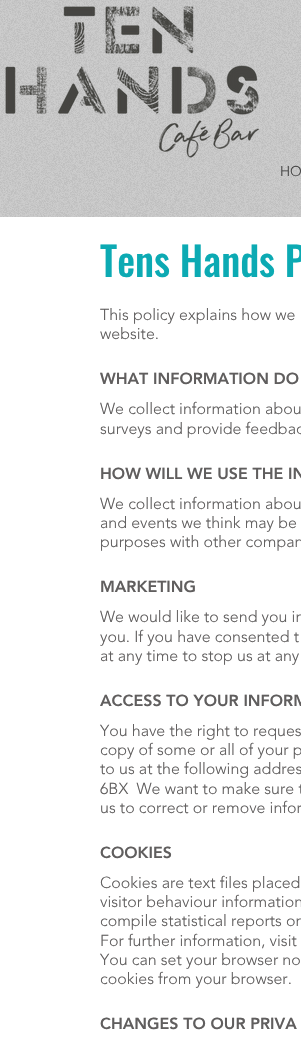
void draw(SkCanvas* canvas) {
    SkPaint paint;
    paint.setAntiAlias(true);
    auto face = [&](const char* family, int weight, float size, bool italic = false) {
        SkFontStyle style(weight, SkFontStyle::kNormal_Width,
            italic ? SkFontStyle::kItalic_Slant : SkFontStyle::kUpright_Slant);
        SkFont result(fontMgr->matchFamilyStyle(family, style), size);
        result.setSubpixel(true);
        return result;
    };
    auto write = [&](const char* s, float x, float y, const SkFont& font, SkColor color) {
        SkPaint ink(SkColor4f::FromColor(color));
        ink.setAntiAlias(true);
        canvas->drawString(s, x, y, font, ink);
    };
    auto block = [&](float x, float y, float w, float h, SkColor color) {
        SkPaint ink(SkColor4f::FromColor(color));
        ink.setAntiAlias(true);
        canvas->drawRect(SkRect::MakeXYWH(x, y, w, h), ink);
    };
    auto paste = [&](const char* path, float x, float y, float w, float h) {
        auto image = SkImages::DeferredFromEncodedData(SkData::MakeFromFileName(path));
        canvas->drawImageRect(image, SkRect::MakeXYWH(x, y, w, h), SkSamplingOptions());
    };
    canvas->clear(SK_ColorWHITE);
    block(0, 0, 301, 217, SkColorSetRGB(204, 204, 204));
    paste("pic1.png", 0, 0, 301, 217);
    paste("pic2.png", 5, 6, 255, 152);
    auto kFont1 = face("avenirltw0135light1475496", 300, 14);
    write("HO", 280, 176, kFont1, SkColorSetRGB(66, 66, 66));
    auto kFont2 = face("Oswald", 500, 40);
    write("Tens Hands P", 100, 277, kFont2, SkColorSetRGB(12, 170, 179));
    auto kFont3 = face("avenirltw0135light1475496", 300, 16);
    write("This policy explains how we", 100, 320, kFont3, SkColorSetRGB(96, 94, 94));
    write("website.", 100, 339, kFont3, SkColorSetRGB(96, 94, 94));
    auto kFont4 = face("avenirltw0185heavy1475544", 900, 16);
    write("WHAT INFORMATION DO", 100, 384, kFont4, SkColorSetRGB(96, 94, 94));
    write("We collect information abou", 100, 414, kFont3, SkColorSetRGB(96, 94, 94));
    write("surveys and provide feedbac", 100, 434, kFont3, SkColorSetRGB(96, 94, 94));
    write("HOW WILL WE USE THE IN", 100, 479, kFont4, SkColorSetRGB(96, 94, 94));
    write("We collect information abou", 100, 509, kFont3, SkColorSetRGB(96, 94, 94));
    write("and events we think may be", 100, 528, kFont3, SkColorSetRGB(96, 94, 94));
    write("purposes with other compan", 100, 547, kFont3, SkColorSetRGB(96, 94, 94));
    write("MARKETING", 100, 592, kFont4, SkColorSetRGB(96, 94, 94));
    write("We would like to send you in", 100, 622, kFont3, SkColorSetRGB(96, 94, 94));
    write("you. If you have consented t", 100, 642, kFont3, SkColorSetRGB(96, 94, 94));
    write("at any time to stop us at any", 100, 661, kFont3, SkColorSetRGB(96, 94, 94));
    write("ACCESS TO YOUR INFORM", 100, 706, kFont4, SkColorSetRGB(96, 94, 94));
    write("You have the right to reques", 100, 736, kFont3, SkColorSetRGB(96, 94, 94));
    write("copy of some or all of your p", 100, 755, kFont3, SkColorSetRGB(96, 94, 94));
    write("to us at the following addres", 100, 774, kFont3, SkColorSetRGB(96, 94, 94));
    write("6BX  We want to make sure t", 100, 794, kFont3, SkColorSetRGB(96, 94, 94));
    write("us to correct or remove infor", 100, 813, kFont3, SkColorSetRGB(96, 94, 94));
    write("COOKIES", 100, 858, kFont4, SkColorSetRGB(96, 94, 94));
    write("Cookies are text files placed", 100, 888, kFont3, SkColorSetRGB(96, 94, 94));
    write("visitor behaviour information", 100, 907, kFont3, SkColorSetRGB(96, 94, 94));
    write("compile statistical reports on", 100, 926, kFont3, SkColorSetRGB(96, 94, 94));
    write("For further information, visit", 100, 946, kFont3, SkColorSetRGB(96, 94, 94));
    write("You can set your browser no", 100, 965, kFont3, SkColorSetRGB(96, 94, 94));
    write("cookies from your browser.", 100, 984, kFont3, SkColorSetRGB(96, 94, 94));
    write("CHANGES TO OUR PRIVA", 100, 1029, kFont4, SkColorSetRGB(96, 94, 94));
}
